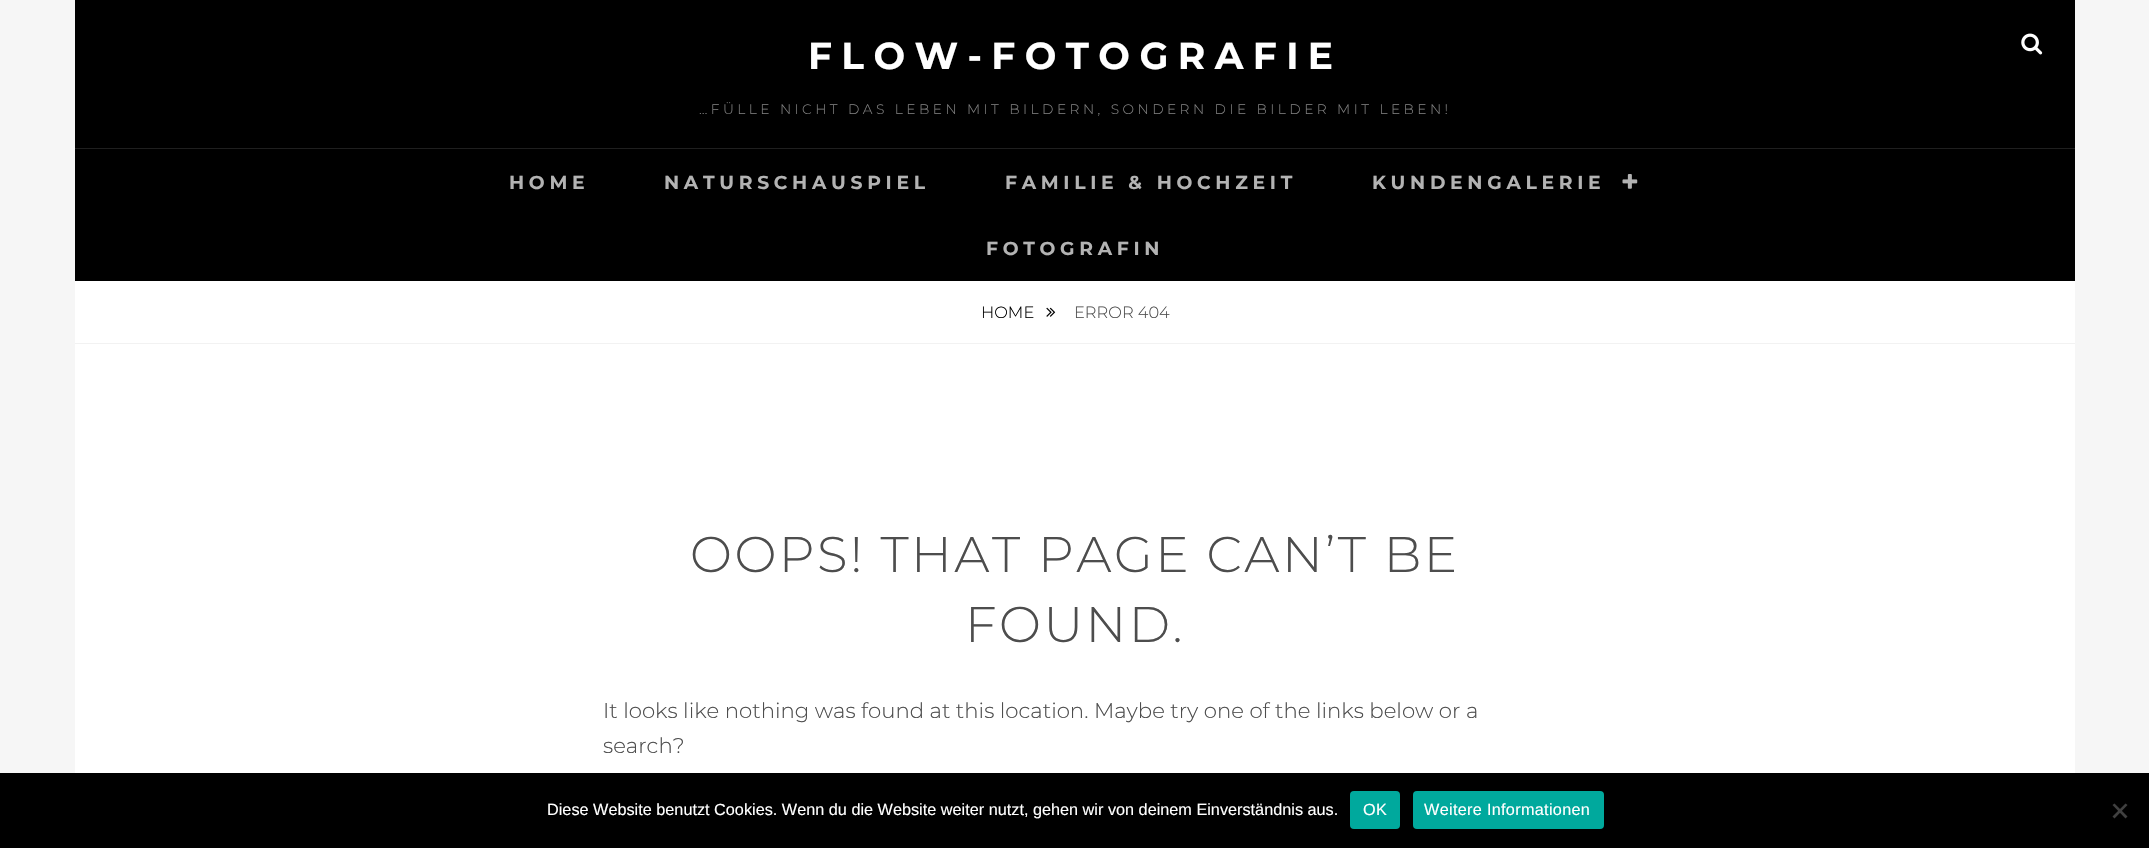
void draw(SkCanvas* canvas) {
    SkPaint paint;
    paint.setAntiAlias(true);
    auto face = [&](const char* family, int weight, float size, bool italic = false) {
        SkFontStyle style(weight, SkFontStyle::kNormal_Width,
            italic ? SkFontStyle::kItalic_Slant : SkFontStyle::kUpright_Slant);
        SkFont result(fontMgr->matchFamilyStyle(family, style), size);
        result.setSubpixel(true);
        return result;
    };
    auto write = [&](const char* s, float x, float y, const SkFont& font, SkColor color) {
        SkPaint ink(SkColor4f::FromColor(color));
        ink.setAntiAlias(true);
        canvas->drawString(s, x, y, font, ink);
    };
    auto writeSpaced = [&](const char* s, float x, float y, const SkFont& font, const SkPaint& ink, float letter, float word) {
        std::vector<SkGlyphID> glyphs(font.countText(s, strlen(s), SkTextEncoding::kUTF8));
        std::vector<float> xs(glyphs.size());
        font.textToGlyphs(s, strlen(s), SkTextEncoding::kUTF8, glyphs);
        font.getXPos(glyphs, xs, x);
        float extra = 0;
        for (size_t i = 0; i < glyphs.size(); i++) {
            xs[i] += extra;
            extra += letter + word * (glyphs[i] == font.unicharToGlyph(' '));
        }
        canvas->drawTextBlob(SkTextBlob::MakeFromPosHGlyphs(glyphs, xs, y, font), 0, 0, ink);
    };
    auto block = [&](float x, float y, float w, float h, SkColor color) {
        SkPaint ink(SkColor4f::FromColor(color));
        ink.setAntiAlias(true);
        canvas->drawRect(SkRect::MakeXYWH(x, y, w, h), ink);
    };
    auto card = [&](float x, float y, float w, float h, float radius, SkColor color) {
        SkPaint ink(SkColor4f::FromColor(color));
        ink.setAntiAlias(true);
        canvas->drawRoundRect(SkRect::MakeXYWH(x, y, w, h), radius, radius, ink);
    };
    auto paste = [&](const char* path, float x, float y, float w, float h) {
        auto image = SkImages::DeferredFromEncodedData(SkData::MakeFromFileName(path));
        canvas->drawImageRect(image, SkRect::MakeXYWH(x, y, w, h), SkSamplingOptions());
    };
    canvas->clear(SkColorSetRGB(246, 246, 246));
    block(75, 281, 2000, 492, SK_ColorWHITE);
    block(75, 0, 2000, 281, SK_ColorBLACK);
    auto kFont1 = face("Montserrat", 700, 37.5f);
    paint.setColor(SK_ColorWHITE);
    writeSpaced("FLOW-FOTOGRAFIE", 808, 69, kFont1, paint, 9.4f, 0);
    auto kFont2 = face("Montserrat", 300, 13.75f);
    paint.setColor(SkColorSetRGB(128, 128, 128));
    writeSpaced("…FÜLLE NICHT DAS LEBEN MIT BILDERN, SONDERN DIE BILDER MIT LEBEN!", 699, 114, kFont2, paint, 3.45f, 0);
    paste("pic1.png", 2021, 33, 22, 22);
    block(75, 148, 2000, 1, SkColorSetRGB(31, 31, 31));
    auto kFont3 = face("Montserrat", 700, 18.75f);
    paint.setColor(SkColorSetRGB(179, 179, 179));
    writeSpaced("HOME", 509, 189, kFont3, paint, 4.7f, 0);
    writeSpaced("NATURSCHAUSPIEL", 664, 189, kFont3, paint, 4.7f, 0);
    writeSpaced("FAMILIE & HOCHZEIT", 1005, 189, kFont3, paint, 4.7f, 0);
    writeSpaced("KUNDENGALERIE", 1372, 189, kFont3, paint, 4.7f, 0);
    paste("pic2.png", 1622, 174, 16, 15);
    writeSpaced("FOTOGRAFIN", 986, 255, kFont3, paint, 4.7f, 0);
    block(75, 343, 2000, 1, SkColorSetRGB(242, 242, 242));
    auto kFont4 = face("Montserrat", 300, 16.25f);
    write("HOME", 981, 318, kFont4, SK_ColorBLACK);
    paste("pic3.png", 1046, 307, 10, 10);
    write("ERROR 404", 1074, 318, kFont4, SkColorSetRGB(77, 77, 77));
    auto kFont5 = face("Montserrat", 300, 50);
    paint.setColor(SkColorSetRGB(77, 77, 77));
    writeSpaced("OOPS! THAT PAGE CAN’T BE", 690, 572, kFont5, paint, 2.5f, 0);
    writeSpaced("FOUND.", 965, 642, kFont5, paint, 2.5f, 0);
    auto kFont6 = face("Montserrat", 300, 21.25f);
    write("It looks like nothing was found at this location. Maybe try one of the links below or a", 603, 718, kFont6, SkColorSetRGB(77, 77, 77));
    write("search?", 603, 753, kFont6, SkColorSetRGB(77, 77, 77));
    block(0, 773, 2149, 75, SK_ColorBLACK);
    auto kFont7 = face("Liberation Sans", 400, 16.25f);
    write("Diese Website benutzt Cookies. Wenn du die Website weiter nutzt, gehen wir von deinem Einverständnis aus.", 547, 815, kFont7, SK_ColorWHITE);
    card(1350, 791, 50, 38, 4, SkColorSetRGB(0, 169, 157));
    paint.setColor(SK_ColorWHITE);
    writeSpaced("OK", 1363, 815, kFont7, paint, 0.3f, 0);
    card(1413, 791, 191, 38, 4, SkColorSetRGB(0, 169, 157));
    writeSpaced("Weitere Informationen", 1424, 815, kFont7, paint, 0.3f, 0);
    paint.setColor(SkColorSetRGB(64, 64, 64));
    canvas->drawPath(SkPathBuilder().moveTo(2125.5f, 803.5f).lineTo(2127.5f, 805).lineTo(2114.5f, 818.5f).lineTo(2112.5f, 816.5f).close().detach(), paint);
    canvas->drawPath(SkPathBuilder().moveTo(2112.5f, 805).lineTo(2114.5f, 803.5f).lineTo(2127.5f, 816.5f).lineTo(2125.5f, 818.5f).close().detach(), paint);
}
